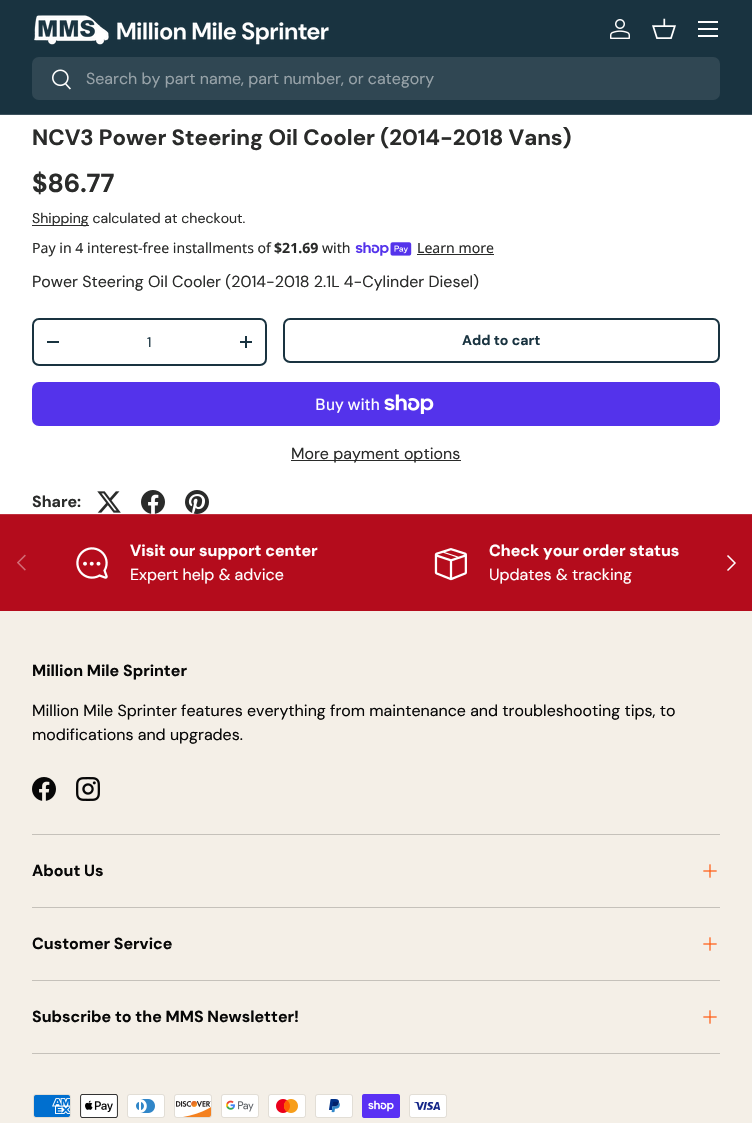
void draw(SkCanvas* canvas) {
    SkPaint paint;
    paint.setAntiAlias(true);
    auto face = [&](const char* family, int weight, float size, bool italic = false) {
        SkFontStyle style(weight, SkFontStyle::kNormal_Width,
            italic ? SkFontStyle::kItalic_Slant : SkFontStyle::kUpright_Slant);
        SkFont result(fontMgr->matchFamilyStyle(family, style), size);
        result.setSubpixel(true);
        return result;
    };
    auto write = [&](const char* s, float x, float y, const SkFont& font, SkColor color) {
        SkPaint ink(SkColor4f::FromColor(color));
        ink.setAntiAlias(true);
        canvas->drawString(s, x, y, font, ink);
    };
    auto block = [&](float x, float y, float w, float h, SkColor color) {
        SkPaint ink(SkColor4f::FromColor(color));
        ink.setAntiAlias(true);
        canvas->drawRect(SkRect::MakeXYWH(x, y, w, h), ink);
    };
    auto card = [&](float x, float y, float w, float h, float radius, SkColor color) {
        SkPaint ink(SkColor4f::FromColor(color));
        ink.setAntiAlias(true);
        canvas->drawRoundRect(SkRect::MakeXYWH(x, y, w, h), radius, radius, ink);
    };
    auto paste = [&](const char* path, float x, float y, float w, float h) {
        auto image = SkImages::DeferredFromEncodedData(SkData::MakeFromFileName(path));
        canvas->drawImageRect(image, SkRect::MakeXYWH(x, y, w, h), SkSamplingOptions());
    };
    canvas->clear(SK_ColorWHITE);
    block(0, 0, 752, 114, SkColorSetRGB(25, 51, 64));
    block(0, 114, 752, 1, SkColorSetRGB(60, 82, 93));
    paste("pic1.png", 34, 15, 295, 30);
    paste("pic2.png", 610, 19, 20, 20);
    paste("pic3.png", 652, 18, 24, 21);
    block(698, 21, 20, 2, SK_ColorWHITE);
    block(698, 35, 20, 2, SK_ColorWHITE);
    block(698, 28, 20, 2, SK_ColorWHITE);
    card(32, 57, 688, 43, 7, SkColorSetRGB(48, 71, 83));
    paste("pic4.png", 52, 69, 19, 21);
    auto kFont1 = face("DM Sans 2", 400, 16);
    write("Search by part name, part number, or category", 86, 84, kFont1, SkColorSetRGB(152, 163, 169));
    auto kFont2 = face("DM Sans", 700, 22.25f);
    write("NCV3 Power Steering Oil Cooler (2014-2018 Vans)", 32, 145, kFont2, SkColorSetRGB(42, 43, 42));
    auto kFont3 = face("DM Sans 2", 700, 26);
    write("$86.77", 32, 192, kFont3, SkColorSetRGB(42, 43, 42));
    block(32, 225, 57, 1, SkColorSetRGB(42, 43, 42));
    auto kFont4 = face("DM Sans", 400, 14.1f);
    write("Shipping calculated at checkout.", 32, 223, kFont4, SkColorSetRGB(42, 43, 42));
    auto kFont5 = face("Noto Sans", 400, 14.1f);
    write("Pay in 4 interest-free installments of", 32, 253, kFont5, SkColorSetRGB(42, 43, 42));
    auto kFont6 = face("Noto Sans", 700, 14.1f);
    write("$21.69", 274, 253, kFont6, SkColorSetRGB(42, 43, 42));
    write("with", 322, 253, kFont5, SkColorSetRGB(42, 43, 42));
    paste("pic5.png", 355, 242, 57, 14);
    write("Learn more", 417, 253, kFont5, SkColorSetRGB(42, 43, 42));
    block(417, 254, 77, 1, SkColorSetRGB(42, 43, 42));
    write("Power Steering Oil Cooler (2014-2018 2.1L 4-Cylinder Diesel)", 32, 287, kFont1, SkColorSetRGB(42, 43, 42));
    paint.setStyle(SkPaint::kStroke_Style);
    paint.setStrokeWidth(2);
    paint.setColor(SkColorSetRGB(25, 51, 64));
    canvas->drawRoundRect(SkRect::MakeXYWH(33, 319, 233, 46), 6, 6, paint);
    block(47, 341, 12, 2, SkColorSetRGB(25, 51, 64));
    write("1", 147, 347, kFont4, SkColorSetRGB(25, 51, 64));
    block(240, 341, 12, 2, SkColorSetRGB(25, 51, 64));
    block(245, 336, 2, 12, SkColorSetRGB(25, 51, 64));
    canvas->drawRoundRect(SkRect::MakeXYWH(284, 319, 435, 43), 6, 6, paint);
    auto kFont7 = face("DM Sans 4", 700, 14.1f);
    write("Add to cart", 462, 345, kFont7, SkColorSetRGB(25, 51, 64));
    card(32, 382, 688, 44, 7, SkColorSetRGB(84, 51, 235));
    auto kFont8 = face("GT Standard", 400, 16);
    write("Buy with", 315, 410, kFont8, SK_ColorWHITE);
    paste("pic6.png", 384, 394, 50, 20);
    block(291, 460, 170, 1, SkColorSetRGB(42, 43, 42));
    write("More payment options", 291, 459, kFont1, SkColorSetRGB(42, 43, 42));
    auto kFont9 = face("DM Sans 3", 700, 16);
    write("Share:", 32, 507, kFont9, SkColorSetRGB(42, 43, 42));
    paste("pic7.png", 97, 491, 24, 22);
    paste("pic8.png", 141, 490, 24, 24);
    paste("pic9.png", 185, 490, 24, 24);
    block(0, 515, 752, 96, SkColorSetRGB(180, 12, 28));
    block(0, 514, 752, 1, SkColorSetRGB(191, 48, 62));
    paste("pic10.png", 76, 547, 32, 32);
    write("Visit our support center", 130, 556, kFont9, SK_ColorWHITE);
    write("Expert help & advice", 130, 580, kFont1, SK_ColorWHITE);
    paste("pic11.png", 434, 548, 33, 33);
    write("Check your order status", 489, 556, kFont9, SK_ColorWHITE);
    write("Updates & tracking", 489, 580, kFont1, SK_ColorWHITE);
    paste("pic12.png", 17, 554, 9, 17);
    paint.setStrokeWidth(1.5f);
    paint.setColor(SK_ColorWHITE);
    canvas->drawPath(SkPathBuilder().moveTo(727.5f, 555.5f).lineTo(735, 563).lineTo(727.5f, 570.5f).detach(), paint);
    block(0, 611, 752, 512, SkColorSetRGB(244, 239, 231));
    write("Million Mile Sprinter", 32, 676, kFont9, SkColorSetRGB(7, 7, 7));
    write("Million Mile Sprinter features everything from maintenance and troubleshooting tips, to", 32, 716, kFont1, SkColorSetRGB(7, 7, 7));
    write("modifications and upgrades.", 32, 740, kFont1, SkColorSetRGB(7, 7, 7));
    paste("pic13.png", 32, 777, 24, 24);
    paste("pic14.png", 76, 777, 24, 24);
    block(32, 834, 688, 1, SkColorSetRGB(197, 193, 186));
    block(32, 907, 688, 1, SkColorSetRGB(197, 193, 186));
    write("About Us", 32, 876, kFont9, SkColorSetRGB(7, 7, 7));
    paste("pic15.png", 703, 864, 14, 14);
    block(32, 980, 688, 1, SkColorSetRGB(197, 193, 186));
    write("Customer Service", 32, 949, kFont9, SkColorSetRGB(7, 7, 7));
    paste("pic15.png", 703, 937, 14, 14);
    block(32, 1053, 688, 1, SkColorSetRGB(197, 193, 186));
    write("Subscribe to the MMS Newsletter!", 32, 1022, kFont9, SkColorSetRGB(7, 7, 7));
    paste("pic15.png", 703, 1010, 14, 14);
    paste("pic16.png", 33, 1094, 38, 24);
    paste("pic17.png", 80, 1094, 38, 24);
    paste("pic18.png", 127, 1094, 38, 24);
    paste("pic19.png", 174, 1094, 38, 24);
    paste("pic20.png", 221, 1094, 38, 24);
    paste("pic21.png", 268, 1094, 38, 24);
    paste("pic22.png", 315, 1094, 38, 24);
    paste("pic23.png", 362, 1094, 38, 24);
    paste("pic24.png", 409, 1094, 38, 24);
}
